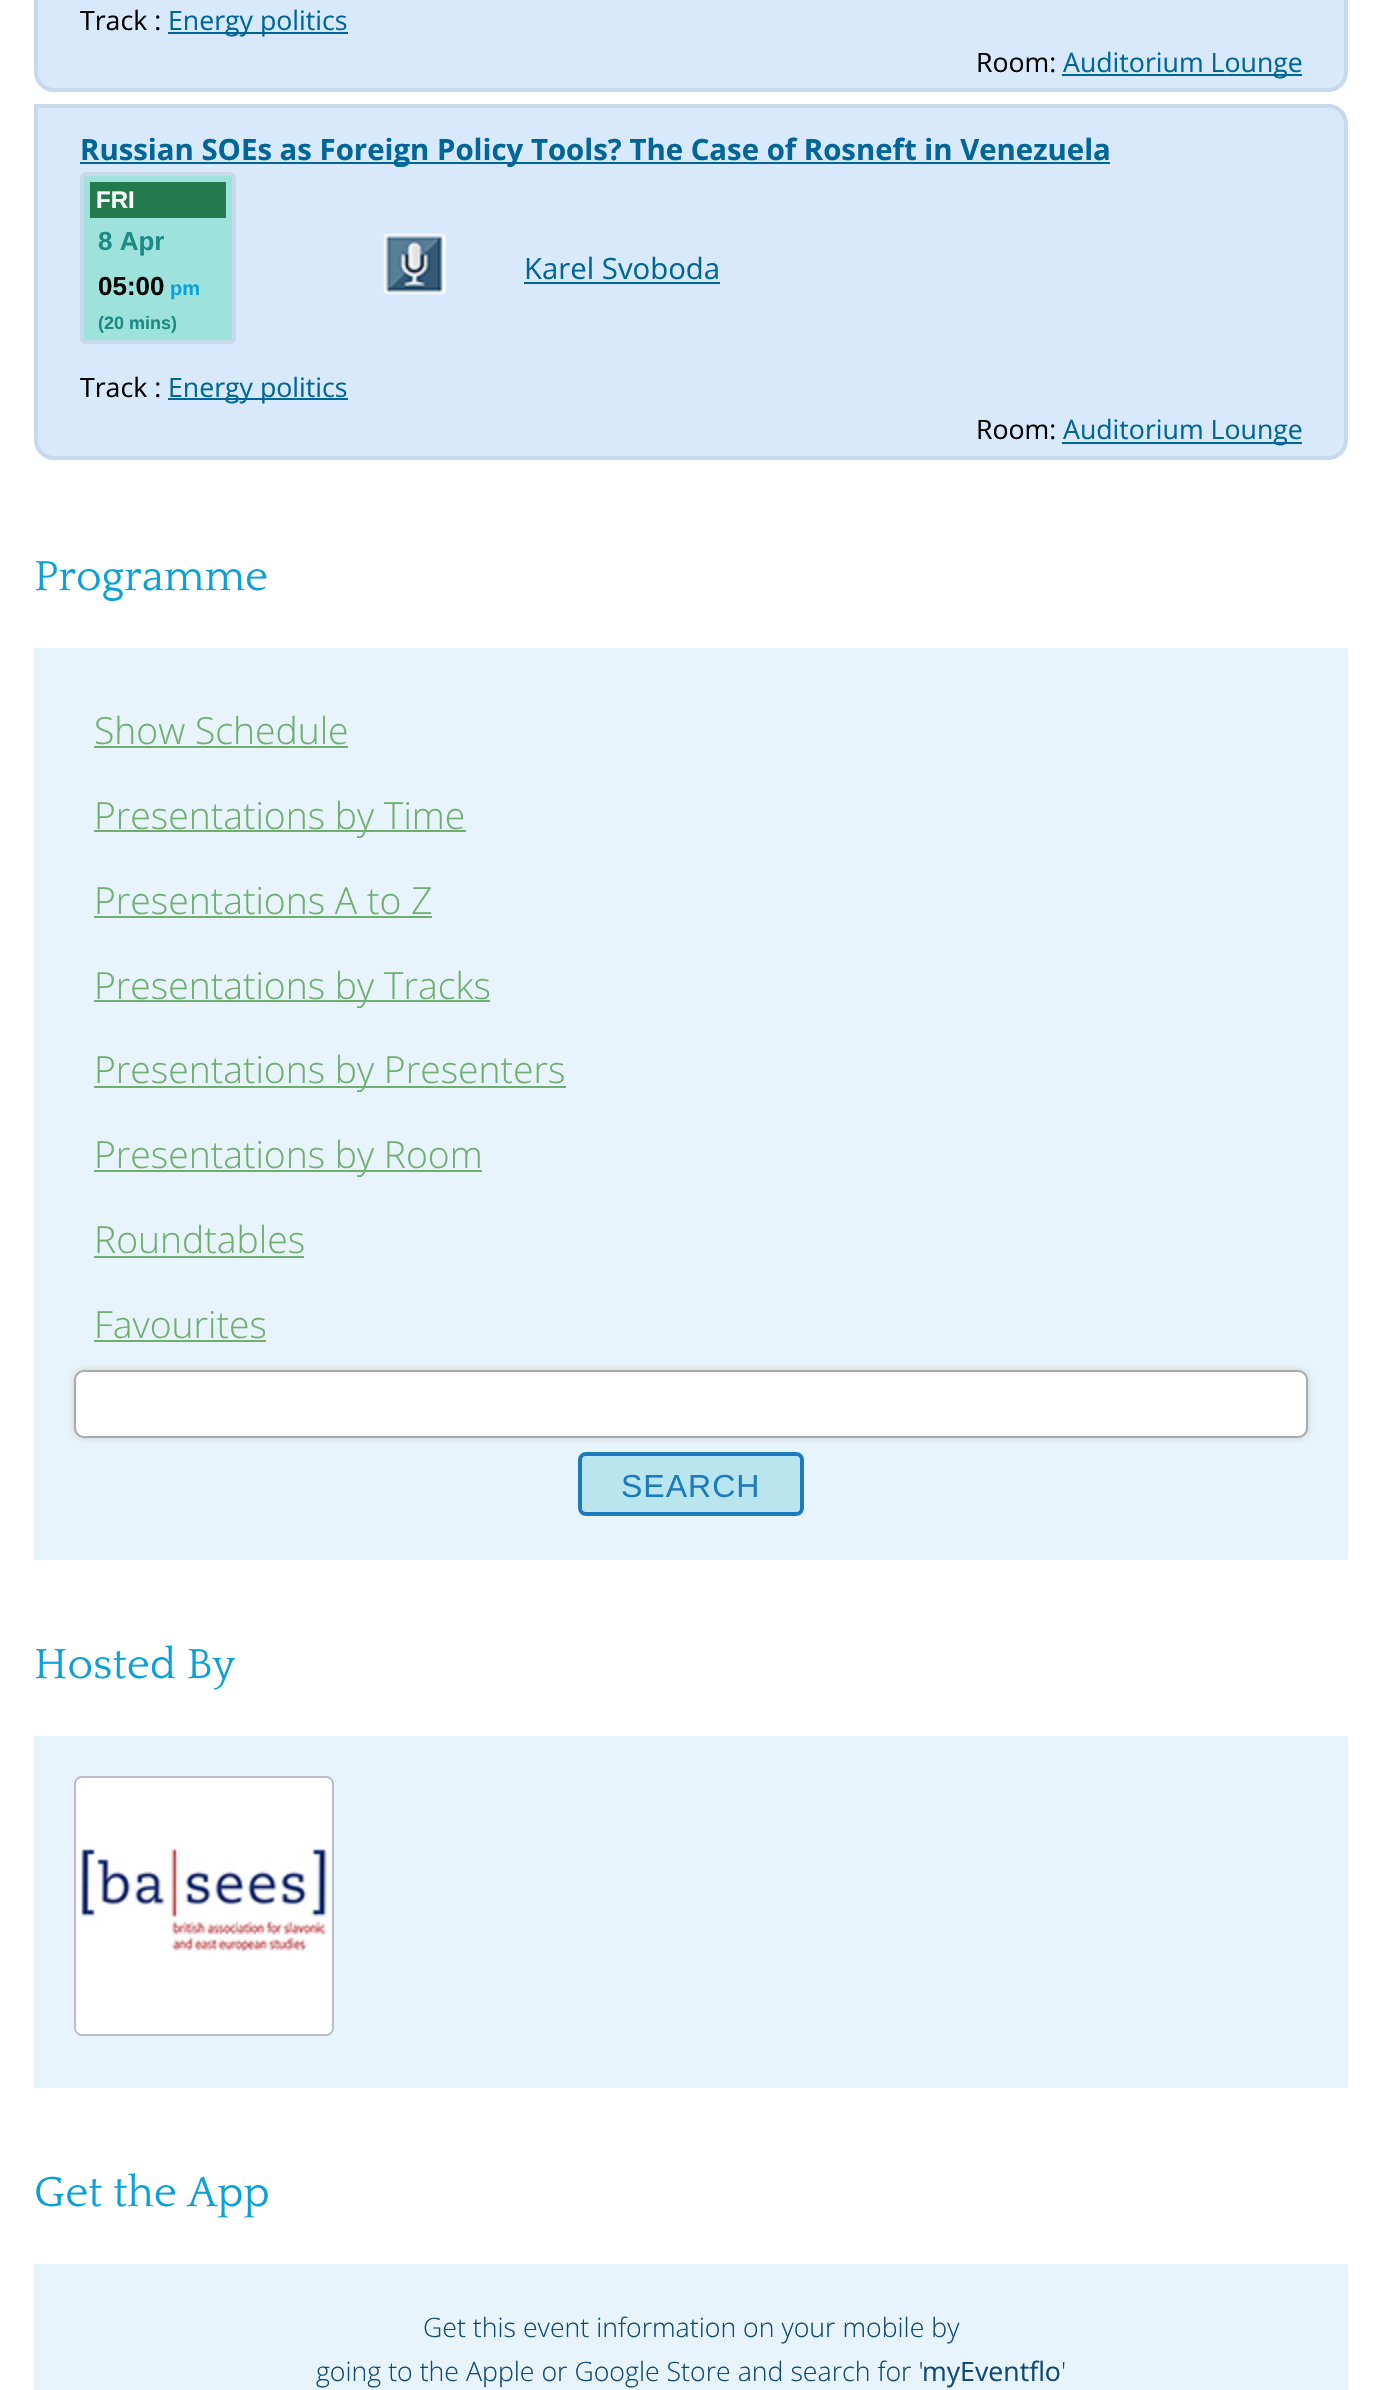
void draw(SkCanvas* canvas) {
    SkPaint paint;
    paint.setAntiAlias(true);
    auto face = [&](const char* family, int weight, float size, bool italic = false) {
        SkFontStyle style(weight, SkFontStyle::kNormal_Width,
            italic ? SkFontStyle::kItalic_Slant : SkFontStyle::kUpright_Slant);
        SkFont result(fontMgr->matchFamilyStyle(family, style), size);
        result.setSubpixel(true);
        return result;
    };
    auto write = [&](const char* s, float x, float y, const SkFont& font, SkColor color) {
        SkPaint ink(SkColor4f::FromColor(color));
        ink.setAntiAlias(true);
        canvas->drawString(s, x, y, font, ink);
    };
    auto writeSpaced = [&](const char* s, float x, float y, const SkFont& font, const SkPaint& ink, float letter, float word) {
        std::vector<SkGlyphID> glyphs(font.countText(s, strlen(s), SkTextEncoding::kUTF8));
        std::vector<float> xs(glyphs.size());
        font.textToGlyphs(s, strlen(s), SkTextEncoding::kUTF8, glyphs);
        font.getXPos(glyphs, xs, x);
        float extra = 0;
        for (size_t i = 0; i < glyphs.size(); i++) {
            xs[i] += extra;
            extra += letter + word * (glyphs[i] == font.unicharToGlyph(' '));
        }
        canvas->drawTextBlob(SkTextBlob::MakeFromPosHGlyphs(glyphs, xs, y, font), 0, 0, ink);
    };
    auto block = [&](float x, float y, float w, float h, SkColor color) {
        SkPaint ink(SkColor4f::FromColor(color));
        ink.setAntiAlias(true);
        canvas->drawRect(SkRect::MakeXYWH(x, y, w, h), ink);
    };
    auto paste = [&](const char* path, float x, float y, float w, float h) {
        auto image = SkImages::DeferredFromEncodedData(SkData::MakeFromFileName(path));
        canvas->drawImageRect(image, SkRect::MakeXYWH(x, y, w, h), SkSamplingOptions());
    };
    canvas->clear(SK_ColorWHITE);
    paint.setColor(SkColorSetRGB(215, 233, 251));
    canvas->drawPath(SkPathBuilder().moveTo(36, -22).lineTo(1328, -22).cubicTo(1338, -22, 1346, -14, 1346, -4).lineTo(1346, 72).cubicTo(1346, 82, 1338, 90, 1328, 90).lineTo(54, 90).cubicTo(44, 90, 36, 82, 36, 72).close().detach(), paint);
    paint.setStyle(SkPaint::kStroke_Style);
    paint.setStrokeWidth(4);
    paint.setColor(SkColorSetRGB(199, 217, 235));
    canvas->drawPath(SkPathBuilder().moveTo(36, -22).lineTo(1328, -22).cubicTo(1338, -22, 1346, -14, 1346, -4).lineTo(1346, 72).cubicTo(1346, 82, 1338, 90, 1328, 90).lineTo(54, 90).cubicTo(44, 90, 36, 82, 36, 72).close().detach(), paint);
    auto kFont1 = face("Open Sans", 400, 26.7f);
    write("Track :", 80, 30, kFont1, SK_ColorBLACK);
    block(168, 32, 180, 2, SkColorSetRGB(0, 102, 153));
    write("Energy politics", 168, 30, kFont1, SkColorSetRGB(0, 102, 153));
    write("Room:", 976, 72, kFont1, SK_ColorBLACK);
    block(1062, 74, 240, 2, SkColorSetRGB(0, 102, 153));
    write("Auditorium Lounge", 1063, 72, kFont1, SkColorSetRGB(0, 102, 153));
    paint.setStyle(SkPaint::kFill_Style);
    paint.setColor(SkColorSetRGB(215, 233, 251));
    canvas->drawPath(SkPathBuilder().moveTo(36, 106).lineTo(1328, 106).cubicTo(1338, 106, 1346, 114, 1346, 124).lineTo(1346, 440).cubicTo(1346, 450, 1338, 458, 1328, 458).lineTo(54, 458).cubicTo(44, 458, 36, 450, 36, 440).close().detach(), paint);
    paint.setStyle(SkPaint::kStroke_Style);
    paint.setColor(SkColorSetRGB(199, 217, 235));
    canvas->drawPath(SkPathBuilder().moveTo(36, 106).lineTo(1328, 106).cubicTo(1338, 106, 1346, 114, 1346, 124).lineTo(1346, 440).cubicTo(1346, 450, 1338, 458, 1328, 458).lineTo(54, 458).cubicTo(44, 458, 36, 450, 36, 440).close().detach(), paint);
    block(80, 162, 1030, 2, SkColorSetRGB(0, 102, 153));
    auto kFont2 = face("Open Sans", 700, 29.35f);
    write("Russian SOEs as Foreign Policy Tools? The Case of Rosneft in Venezuela", 80, 160, kFont2, SkColorSetRGB(0, 102, 153));
    paint.setStyle(SkPaint::kFill_Style);
    paint.setColor(SkColorSetRGB(158, 226, 221));
    canvas->drawRoundRect(SkRect::MakeXYWH(82, 174, 152, 168), 4, 4, paint);
    paint.setStyle(SkPaint::kStroke_Style);
    paint.setColor(SkColorSetRGB(199, 217, 235));
    canvas->drawRoundRect(SkRect::MakeXYWH(82, 174, 152, 168), 4, 4, paint);
    block(90, 182, 136, 36, SkColorSetRGB(35, 122, 77));
    auto kFont3 = face("Liberation Sans", 700, 24);
    write("FRI", 96, 208, kFont3, SK_ColorWHITE);
    auto kFont4 = face("Liberation Sans", 700, 26);
    write("8 Apr", 98, 250, kFont4, SkColorSetRGB(28, 139, 131));
    write("05:00", 98, 295, kFont4, SK_ColorBLACK);
    auto kFont5 = face("Liberation Sans", 700, 20);
    write("pm", 170, 295, kFont5, SkColorSetRGB(10, 160, 216));
    auto kFont6 = face("Liberation Sans", 700, 18);
    write("(20 mins)", 98, 329, kFont6, SkColorSetRGB(28, 139, 131));
    paste("pic1.png", 383, 233, 63, 62);
    auto kFont7 = face("Open Sans", 400, 29.35f);
    write("Karel Svoboda", 524, 279, kFont7, SkColorSetRGB(0, 102, 153));
    block(524, 282, 196, 2, SkColorSetRGB(0, 102, 153));
    write("Track :", 80, 397, kFont1, SK_ColorBLACK);
    block(168, 398, 180, 2, SkColorSetRGB(0, 102, 153));
    write("Energy politics", 168, 397, kFont1, SkColorSetRGB(0, 102, 153));
    write("Room:", 976, 439, kFont1, SK_ColorBLACK);
    block(1062, 442, 240, 2, SkColorSetRGB(0, 102, 153));
    write("Auditorium Lounge", 1063, 439, kFont1, SkColorSetRGB(0, 102, 153));
    auto kFont8 = face("Quattrocento", 400, 44);
    write("Programme", 34, 590, kFont8, SkColorSetRGB(10, 160, 216));
    block(34, 648, 1314, 912, SkColorSetRGB(232, 244, 251));
    auto kFont9 = face("Open Sans", 300, 37.3f);
    write("Show Schedule", 94, 744, kFont9, SkColorSetRGB(112, 174, 112));
    block(94, 746, 254, 2, SkColorSetRGB(112, 174, 112));
    block(94, 830, 372, 2, SkColorSetRGB(112, 174, 112));
    write("Presentations by Time", 94, 829, kFont9, SkColorSetRGB(112, 174, 112));
    write("Presentations A to Z", 94, 914, kFont9, SkColorSetRGB(112, 174, 112));
    block(94, 916, 338, 2, SkColorSetRGB(112, 174, 112));
    block(94, 1000, 396, 2, SkColorSetRGB(112, 174, 112));
    write("Presentations by Tracks", 94, 999, kFont9, SkColorSetRGB(112, 174, 112));
    block(94, 1086, 472, 2, SkColorSetRGB(112, 174, 112));
    write("Presentations by Presenters", 94, 1083, kFont9, SkColorSetRGB(112, 174, 112));
    block(94, 1170, 388, 2, SkColorSetRGB(112, 174, 112));
    write("Presentations by Room", 94, 1168, kFont9, SkColorSetRGB(112, 174, 112));
    write("Roundtables", 94, 1253, kFont9, SkColorSetRGB(112, 174, 112));
    block(94, 1256, 210, 2, SkColorSetRGB(112, 174, 112));
    write("Favourites", 94, 1338, kFont9, SkColorSetRGB(112, 174, 112));
    block(94, 1340, 172, 2, SkColorSetRGB(112, 174, 112));
    paint.setStyle(SkPaint::kFill_Style);
    paint.setColor(SkColorSetRGB(204, 204, 204));
    paint.setMaskFilter(SkMaskFilter::MakeBlur(kNormal_SkBlurStyle, 3));
    canvas->drawRoundRect(SkRect::MakeXYWH(74, 1370, 1234, 68), 10, 10, paint);
    paint.setMaskFilter(nullptr);
    paint.setColor(SK_ColorWHITE);
    canvas->drawRoundRect(SkRect::MakeXYWH(75, 1371, 1232, 66), 9, 9, paint);
    paint.setStyle(SkPaint::kStroke_Style);
    paint.setStrokeWidth(2);
    paint.setColor(SkColorSetRGB(170, 170, 170));
    canvas->drawRoundRect(SkRect::MakeXYWH(75, 1371, 1232, 66), 9, 9, paint);
    paint.setStyle(SkPaint::kFill_Style);
    paint.setColor(SkColorSetRGB(185, 230, 238));
    canvas->drawRoundRect(SkRect::MakeXYWH(580, 1454, 222, 60), 6, 6, paint);
    paint.setStyle(SkPaint::kStroke_Style);
    paint.setStrokeWidth(4);
    paint.setColor(SkColorSetRGB(30, 122, 191));
    canvas->drawRoundRect(SkRect::MakeXYWH(580, 1454, 222, 60), 6, 6, paint);
    auto kFont10 = face("Liberation Sans", 400, 32);
    paint.setStyle(SkPaint::kFill_Style);
    writeSpaced("SEARCH", 621, 1497, kFont10, paint, 1, 0);
    write("Hosted By", 34, 1678, kFont8, SkColorSetRGB(10, 160, 216));
    block(34, 1736, 1314, 352, SkColorSetRGB(232, 244, 251));
    paint.setStyle(SkPaint::kStroke_Style);
    paint.setStrokeWidth(2);
    paint.setColor(SkColorSetRGB(187, 187, 204));
    canvas->drawRoundRect(SkRect::MakeXYWH(75, 1777, 258, 258), 7, 7, paint);
    paste("pic2.png", 76, 1778, 256, 256);
    write("Get the App", 34, 2206, kFont8, SkColorSetRGB(10, 160, 216));
    block(34, 2264, 1314, 126, SkColorSetRGB(232, 244, 251));
    auto kFont11 = face("Open Sans", 300, 26.7f);
    write("Get this event information on your mobile by", 423, 2337, kFont11, SkColorSetRGB(15, 73, 117));
    write("going to the Apple or Google Store and search for '", 316, 2381, kFont11, SkColorSetRGB(15, 73, 117));
    write("myEventflo", 922, 2381, kFont1, SkColorSetRGB(15, 73, 117));
    write("'", 1061, 2381, kFont11, SkColorSetRGB(15, 73, 117));
}
